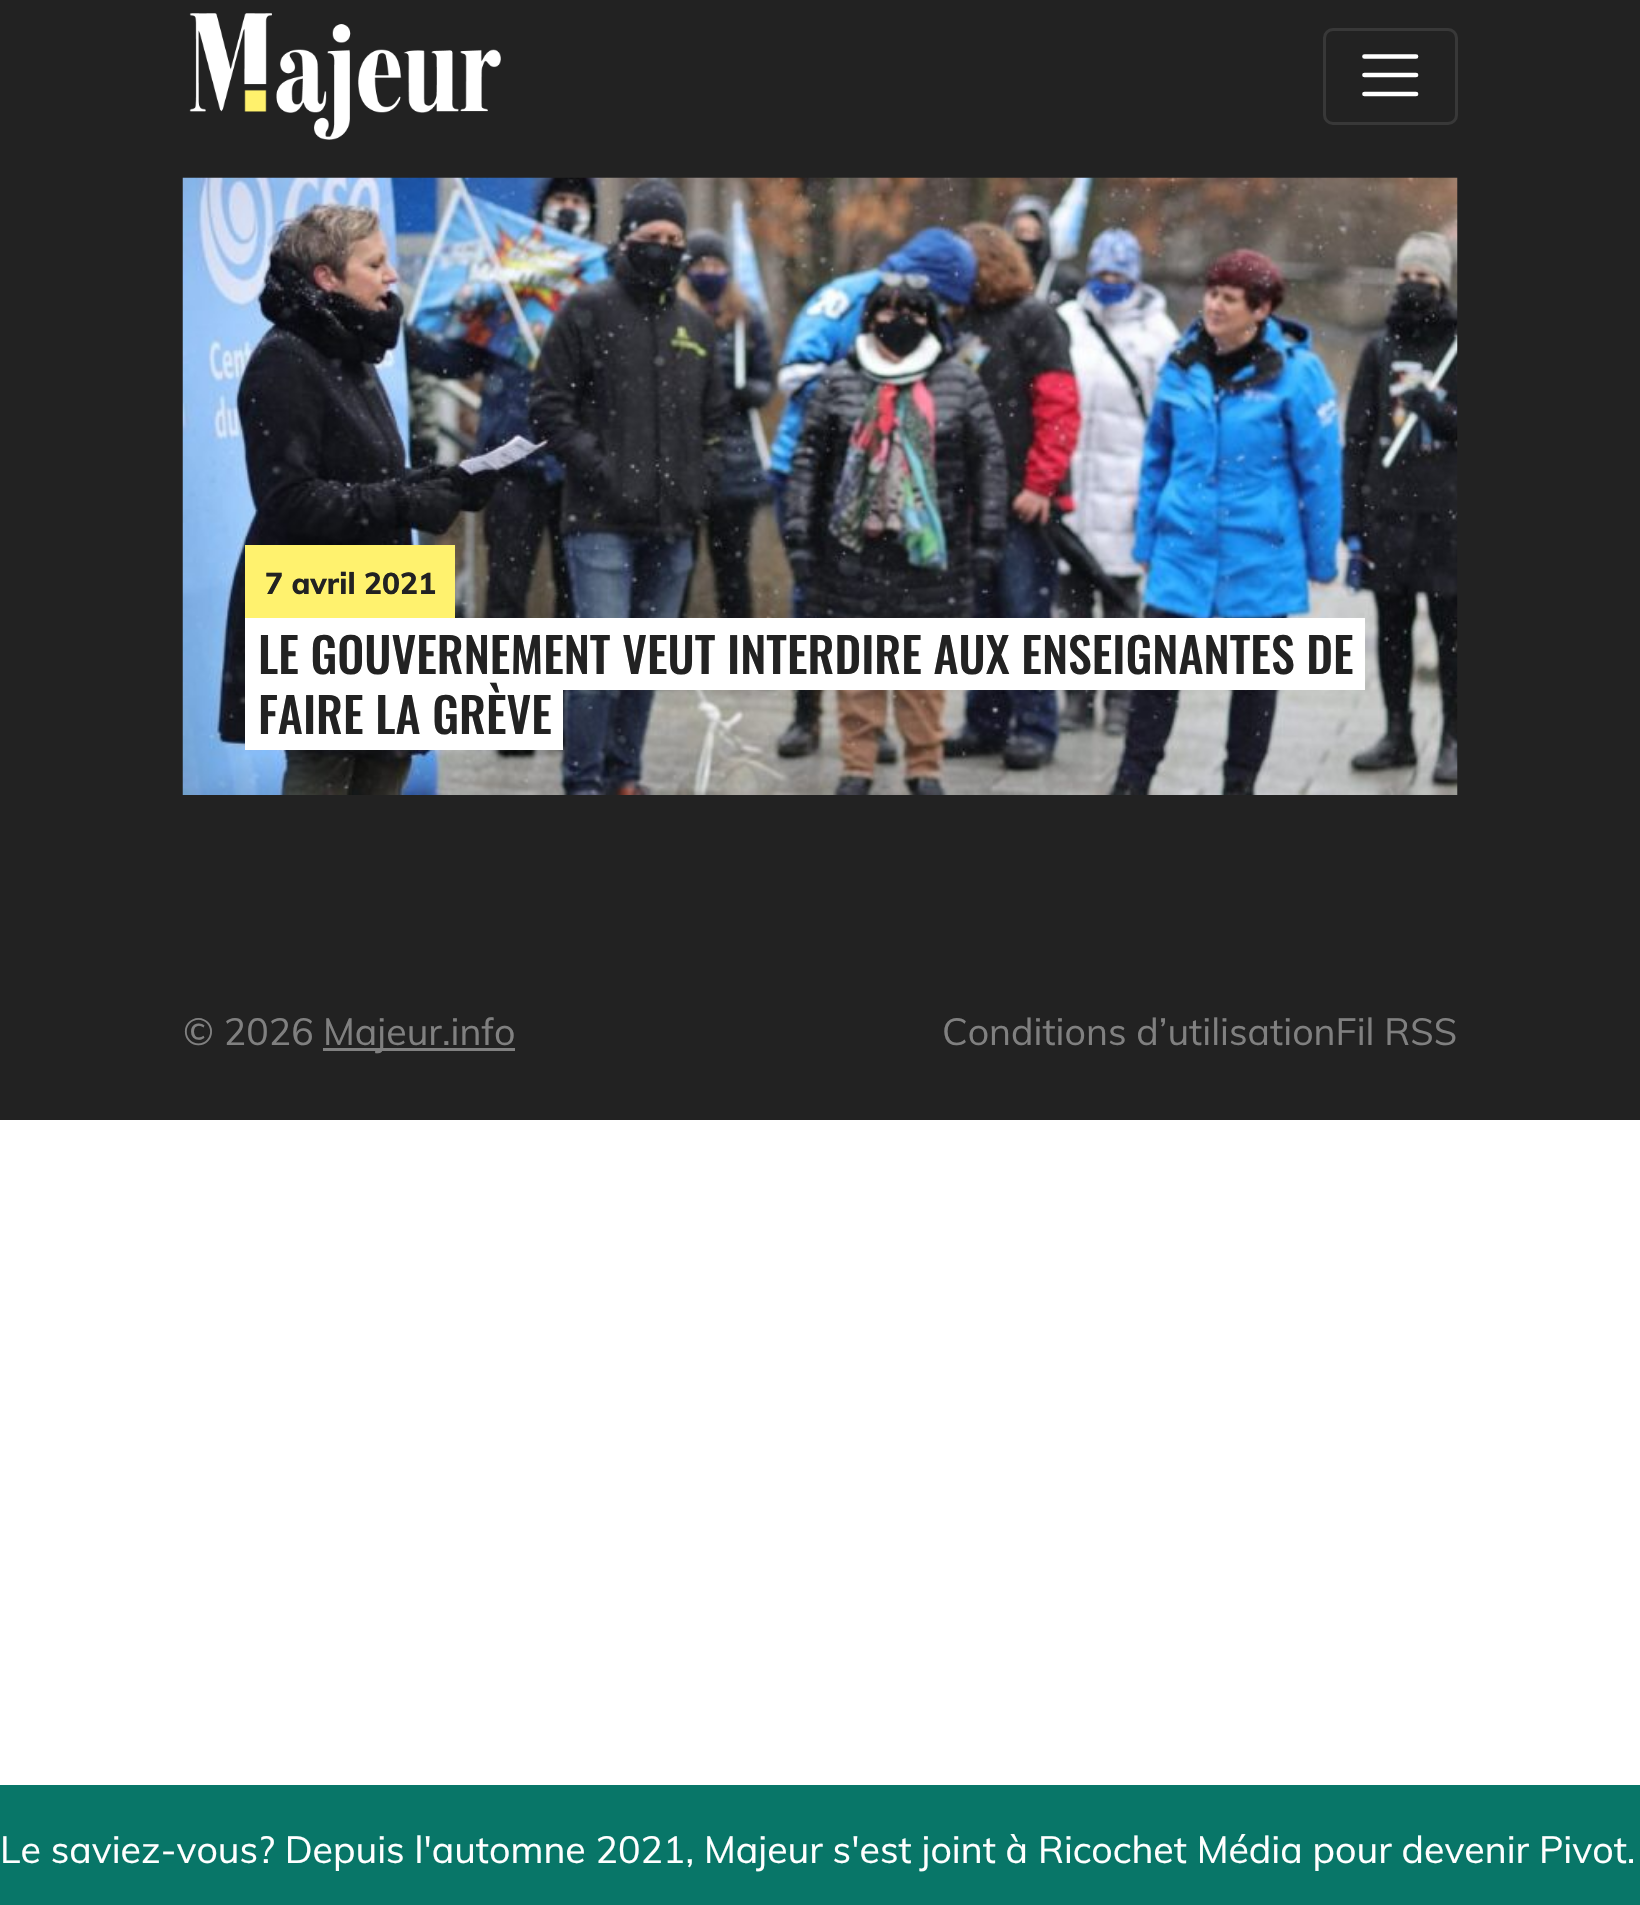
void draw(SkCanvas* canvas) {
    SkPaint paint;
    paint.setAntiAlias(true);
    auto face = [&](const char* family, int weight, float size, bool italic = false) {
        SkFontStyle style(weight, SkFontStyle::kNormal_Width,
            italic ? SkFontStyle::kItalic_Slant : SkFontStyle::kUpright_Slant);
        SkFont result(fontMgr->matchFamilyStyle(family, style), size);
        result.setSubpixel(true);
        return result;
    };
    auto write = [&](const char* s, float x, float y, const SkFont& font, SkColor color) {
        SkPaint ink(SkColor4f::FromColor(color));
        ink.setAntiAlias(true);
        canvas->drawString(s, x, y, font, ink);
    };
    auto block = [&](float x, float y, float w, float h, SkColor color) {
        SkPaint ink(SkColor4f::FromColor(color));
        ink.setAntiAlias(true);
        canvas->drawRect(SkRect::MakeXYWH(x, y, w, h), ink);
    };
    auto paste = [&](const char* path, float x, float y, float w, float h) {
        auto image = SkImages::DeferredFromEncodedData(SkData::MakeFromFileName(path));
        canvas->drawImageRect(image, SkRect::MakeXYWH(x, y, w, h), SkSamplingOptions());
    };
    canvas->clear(SK_ColorWHITE);
    block(0, 0, 1640, 1120, SkColorSetRGB(34, 34, 34));
    paste("pic1.png", 189, 13, 312, 127);
    paint.setStyle(SkPaint::kStroke_Style);
    paint.setStrokeWidth(3);
    paint.setColor(SkColorSetRGB(56, 56, 56));
    canvas->drawRoundRect(SkRect::MakeXYWH(1324.5f, 29.5f, 132, 94), 8.5f, 8.5f, paint);
    paint.setStrokeWidth(4.7f);
    paint.setStrokeCap(SkPaint::kRound_Cap);
    paint.setColor(SK_ColorWHITE);
    canvas->drawPath(SkPathBuilder().moveTo(1364.5f, 56.5f).lineTo(1416, 56.5f).moveTo(1364.5f, 75).lineTo(1416, 75).moveTo(1364.5f, 94).lineTo(1416, 94).detach(), paint);
    paste("pic2.png", 182, 177, 1276, 618);
    block(245, 545, 210, 73, SkColorSetRGB(255, 242, 110));
    auto kFont1 = face("Muli", 800, 30);
    write("7 avril 2021", 265, 594, kFont1, SkColorSetRGB(34, 34, 34));
    block(258, 618, 1107, 72, SK_ColorWHITE);
    auto kFont2 = face("Oswald", 500, 48);
    write("LE GOUVERNEMENT VEUT INTERDIRE AUX ENSEIGNANTES DE", 258, 674, kFont2, SkColorSetRGB(34, 34, 34));
    block(258, 690, 305, 60, SK_ColorWHITE);
    write("FAIRE LA GRÈVE", 258, 734, kFont2, SkColorSetRGB(34, 34, 34));
    block(245, 618, 13, 132, SK_ColorWHITE);
    auto kFont3 = face("Muli", 400, 37.5f);
    write("© 2026", 183, 1045, kFont3, SkColorSetRGB(128, 128, 128));
    block(323, 1048, 192, 3, SkColorSetRGB(128, 128, 128));
    write("Majeur.info", 323, 1045, kFont3, SkColorSetRGB(128, 128, 128));
    write("Conditions d’utilisationFil RSS", 942, 1045, kFont3, SkColorSetRGB(128, 128, 128));
    block(0, 1785, 1640, 120, SkColorSetRGB(8, 118, 104));
    write("Le saviez-vous? Depuis l'automne 2021, Majeur s'est joint à Ricochet Média pour devenir Pivot.", 0, 1863, kFont3, SK_ColorWHITE);
}
